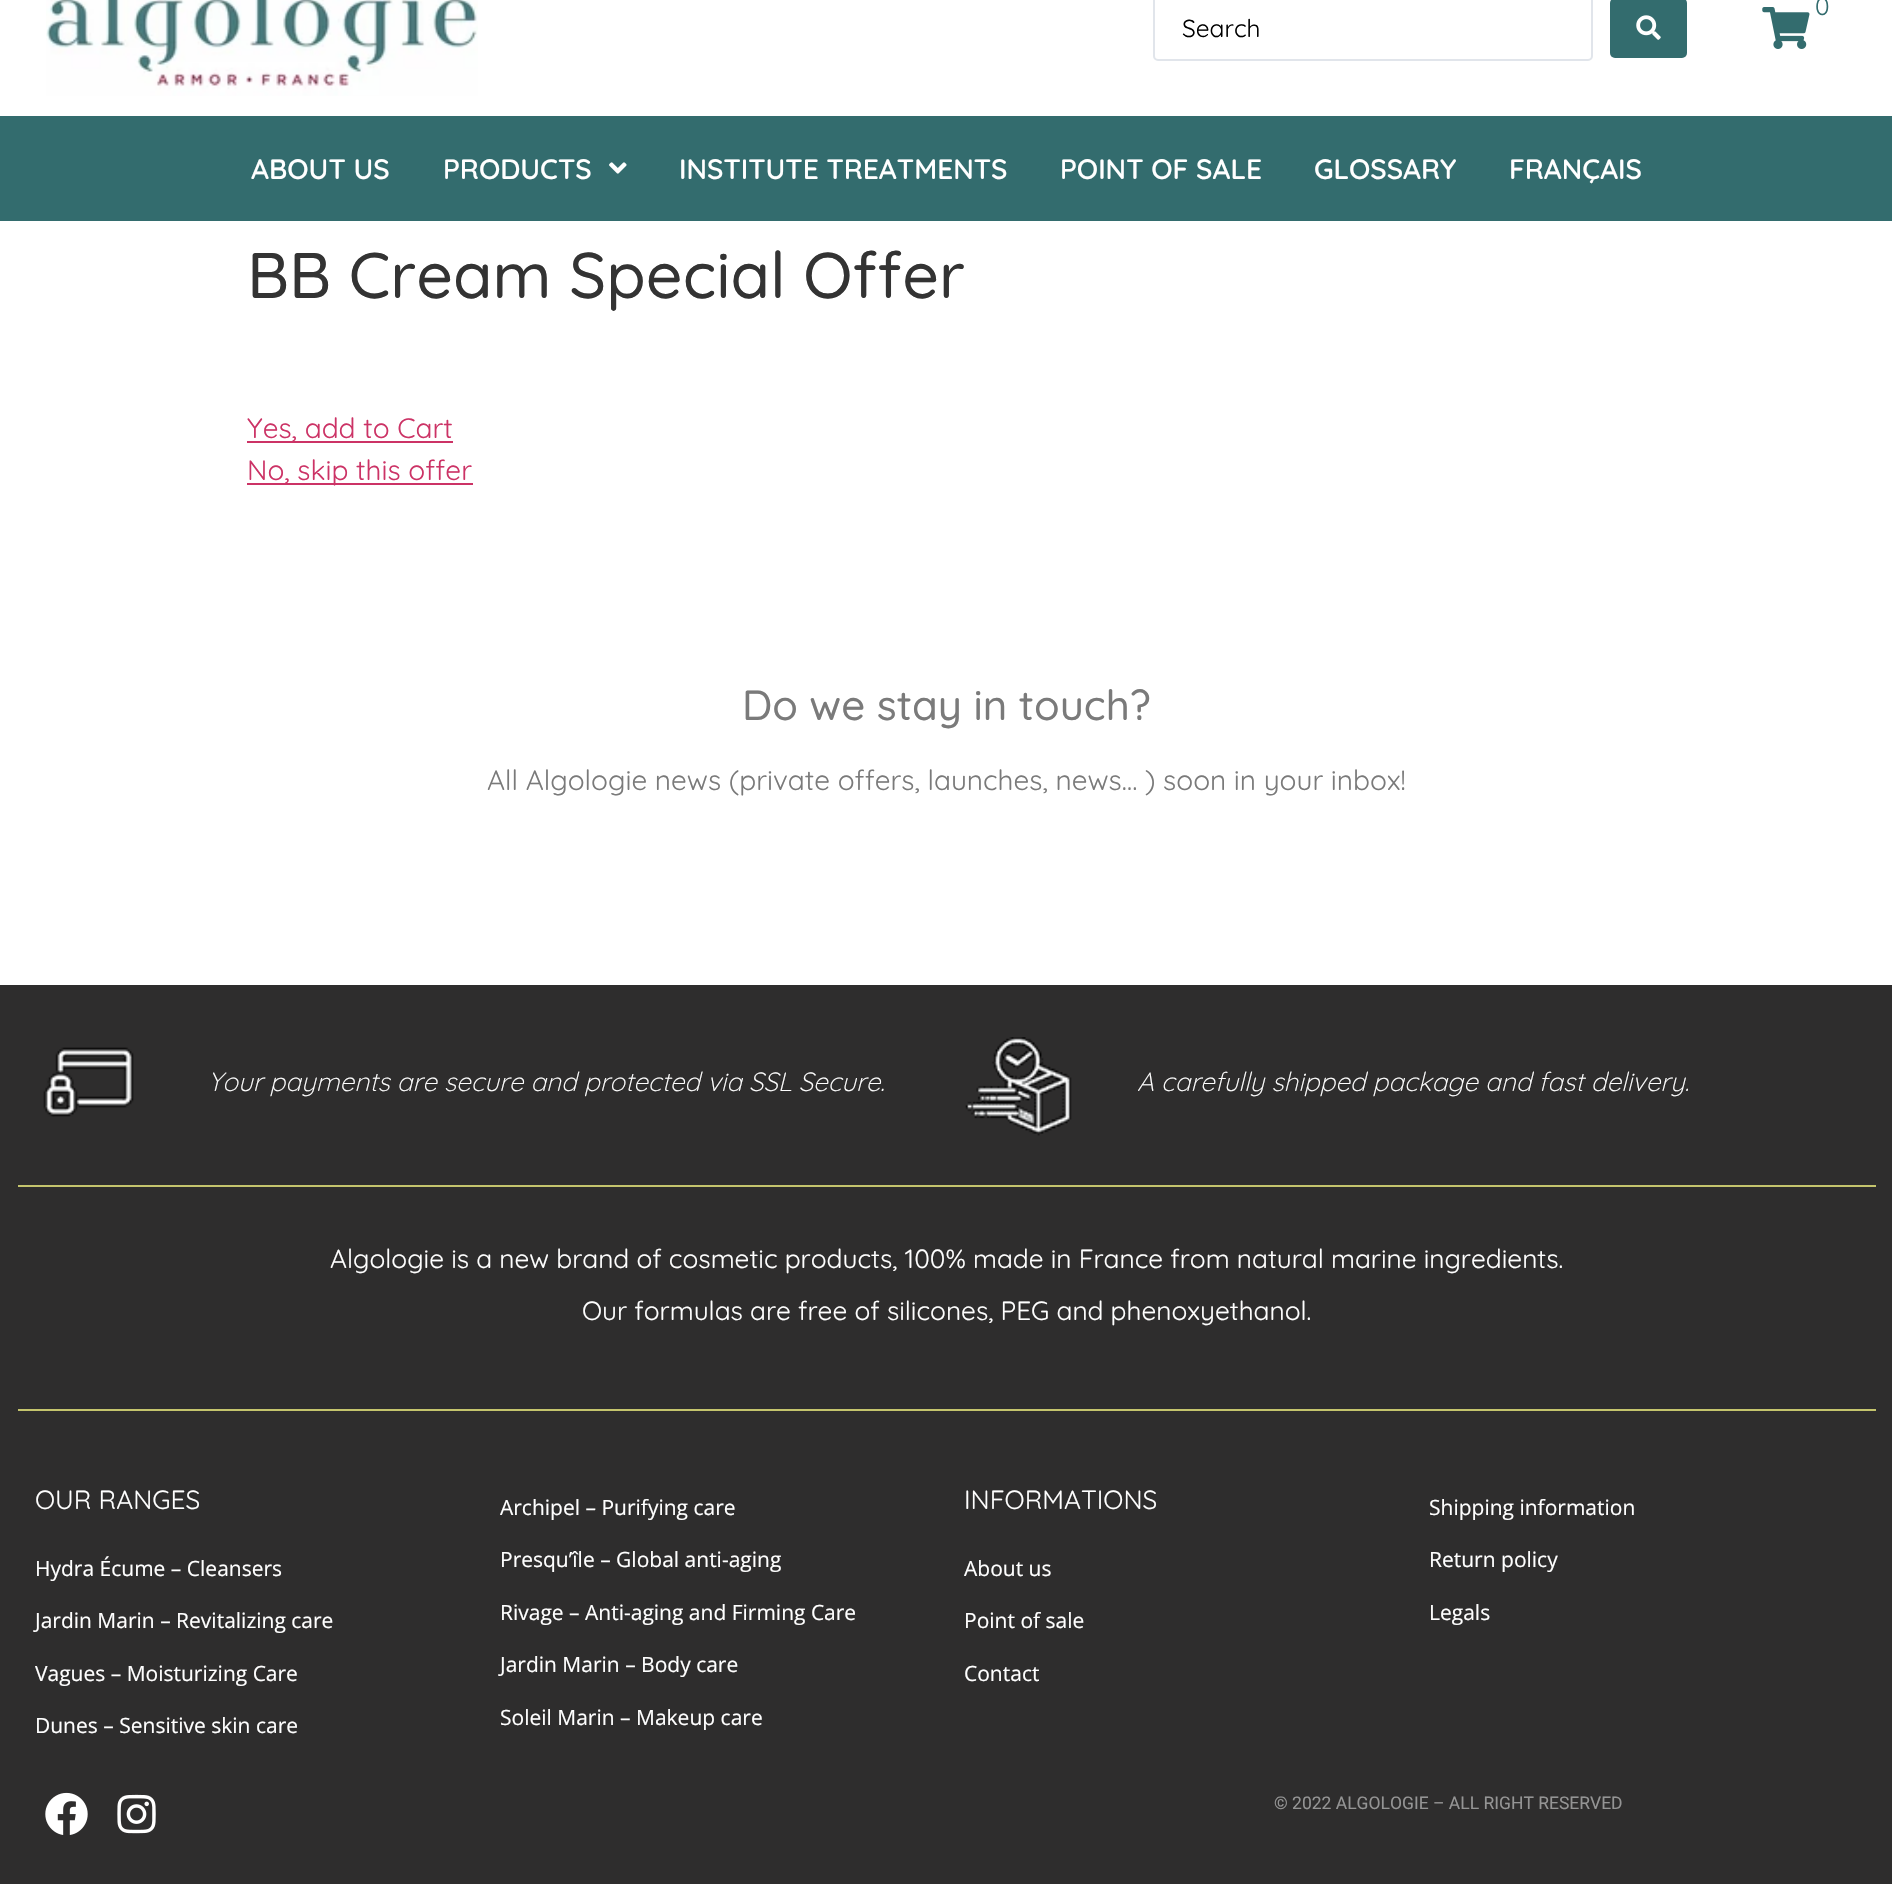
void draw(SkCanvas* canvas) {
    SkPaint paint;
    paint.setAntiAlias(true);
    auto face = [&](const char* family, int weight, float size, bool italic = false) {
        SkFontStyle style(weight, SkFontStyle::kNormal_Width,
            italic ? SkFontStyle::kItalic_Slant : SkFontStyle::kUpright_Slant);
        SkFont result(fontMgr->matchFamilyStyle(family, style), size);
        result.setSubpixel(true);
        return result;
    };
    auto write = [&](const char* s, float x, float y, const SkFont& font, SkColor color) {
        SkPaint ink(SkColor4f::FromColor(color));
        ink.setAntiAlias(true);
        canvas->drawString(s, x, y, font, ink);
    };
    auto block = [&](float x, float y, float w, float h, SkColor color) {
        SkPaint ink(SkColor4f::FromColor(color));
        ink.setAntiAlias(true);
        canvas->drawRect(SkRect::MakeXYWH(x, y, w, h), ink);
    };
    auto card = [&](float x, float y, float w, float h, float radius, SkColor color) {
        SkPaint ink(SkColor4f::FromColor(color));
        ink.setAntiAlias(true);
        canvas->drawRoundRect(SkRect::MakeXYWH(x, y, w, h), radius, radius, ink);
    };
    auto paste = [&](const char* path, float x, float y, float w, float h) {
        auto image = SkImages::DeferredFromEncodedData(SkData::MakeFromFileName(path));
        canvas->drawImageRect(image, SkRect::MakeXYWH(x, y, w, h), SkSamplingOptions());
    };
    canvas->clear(SK_ColorWHITE);
    paste("pic1.png", 46, 0, 432, 96);
    paste("pic2.png", 1762, 7, 48, 42);
    auto kFont1 = face("Quicksand", 400, 24.5f);
    write("0", 1815, 15, kFont1, SkColorSetRGB(51, 108, 110));
    paint.setStyle(SkPaint::kStroke_Style);
    paint.setStrokeWidth(2);
    paint.setColor(SkColorSetRGB(225, 229, 235));
    canvas->drawRoundRect(SkRect::MakeXYWH(1154, -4, 438, 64), 4, 4, paint);
    write("Search", 1182, 37, kFont1, SK_ColorBLACK);
    card(1610, -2, 77, 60, 5, SkColorSetRGB(51, 108, 110));
    paste("pic3.png", 1636, 15, 25, 25);
    block(0, 116, 1892, 105, SkColorSetRGB(51, 108, 110));
    auto kFont2 = face("Quicksand", 600, 28);
    write("ABOUT US", 251, 179, kFont2, SK_ColorWHITE);
    write("PRODUCTS", 443, 179, kFont2, SK_ColorWHITE);
    paste("pic4.png", 609, 162, 18, 12);
    write("INSTITUTE TREATMENTS", 679, 179, kFont2, SK_ColorWHITE);
    write("POINT OF SALE", 1060, 179, kFont2, SK_ColorWHITE);
    write("GLOSSARY", 1314, 179, kFont2, SK_ColorWHITE);
    write("FRANÇAIS", 1509, 179, kFont2, SK_ColorWHITE);
    auto kFont3 = face("Quicksand", 500, 64.4f);
    write("BB Cream Special Offer", 247, 298, kFont3, SkColorSetRGB(51, 51, 51));
    block(247, 441, 206, 2, SkColorSetRGB(204, 51, 102));
    auto kFont4 = face("Quicksand", 400, 28);
    write("Yes, add to Cart", 247, 438, kFont4, SkColorSetRGB(204, 51, 102));
    block(247, 483, 226, 2, SkColorSetRGB(204, 51, 102));
    write("No, skip this offer", 247, 480, kFont4, SkColorSetRGB(204, 51, 102));
    auto kFont5 = face("Quicksand", 500, 42);
    write("Do we stay in touch?", 742, 720, kFont5, SkColorSetRGB(122, 122, 122));
    write("All Algologie news (private offers, launches, news… ) soon in your inbox!", 487, 790, kFont4, SkColorSetRGB(122, 122, 122));
    block(0, 985, 1892, 899, SkColorSetRGB(46, 45, 45));
    paste("pic5.png", 43, 1047, 91, 70);
    auto kFont6 = face("Quicksand", 300, 26.25f, true);
    write("Your payments are secure and protected via SSL Secure.", 208, 1091, kFont6, SK_ColorWHITE);
    paste("pic6.png", 965, 1037, 107, 99);
    write("A carefully shipped package and fast delivery.", 1137, 1091, kFont6, SK_ColorWHITE);
    block(18, 1185, 1858, 2, SkColorSetRGB(196, 196, 109));
    auto kFont7 = face("Quicksand", 400, 26.25f);
    write("Algologie is a new brand of cosmetic products, 100% made in France from natural marine ingredients.", 330, 1268, kFont7, SK_ColorWHITE);
    write("Our formulas are free of silicones, PEG and phenoxyethanol.", 582, 1320, kFont7, SK_ColorWHITE);
    block(18, 1409, 1858, 2, SkColorSetRGB(196, 196, 109));
    write("OUR RANGES", 35, 1509, kFont7, SK_ColorWHITE);
    auto kFont8 = face("Open Sans", 400, 21);
    write("Hydra Écume – Cleansers", 35, 1576, kFont8, SK_ColorWHITE);
    write("Jardin Marin – Revitalizing care", 35, 1628, kFont8, SK_ColorWHITE);
    write("Vagues – Moisturizing Care", 35, 1681, kFont8, SK_ColorWHITE);
    write("Dunes – Sensitive skin care", 35, 1733, kFont8, SK_ColorWHITE);
    write("Archipel – Purifying care", 500, 1515, kFont8, SK_ColorWHITE);
    write("Presqu’île – Global anti-aging", 500, 1567, kFont8, SK_ColorWHITE);
    write("Rivage – Anti-aging and Firming Care", 500, 1620, kFont8, SK_ColorWHITE);
    write("Jardin Marin – Body care", 500, 1672, kFont8, SK_ColorWHITE);
    write("Soleil Marin – Makeup care", 500, 1725, kFont8, SK_ColorWHITE);
    write("INFORMATIONS", 964, 1509, kFont7, SK_ColorWHITE);
    write("About us", 964, 1576, kFont8, SK_ColorWHITE);
    write("Point of sale", 964, 1628, kFont8, SK_ColorWHITE);
    write("Contact", 964, 1681, kFont8, SK_ColorWHITE);
    write("Shipping information", 1429, 1515, kFont8, SK_ColorWHITE);
    write("Return policy", 1429, 1567, kFont8, SK_ColorWHITE);
    write("Legals", 1429, 1620, kFont8, SK_ColorWHITE);
    paste("pic7.png", 45, 1792, 43, 43);
    paste("pic8.png", 117, 1794, 39, 40);
    auto kFont9 = face("Roboto", 400, 17.5f);
    write("© 2022 ALGOLOGIE – ALL RIGHT RESERVED", 1274, 1809, kFont9, SkColorSetRGB(148, 148, 148));
}
